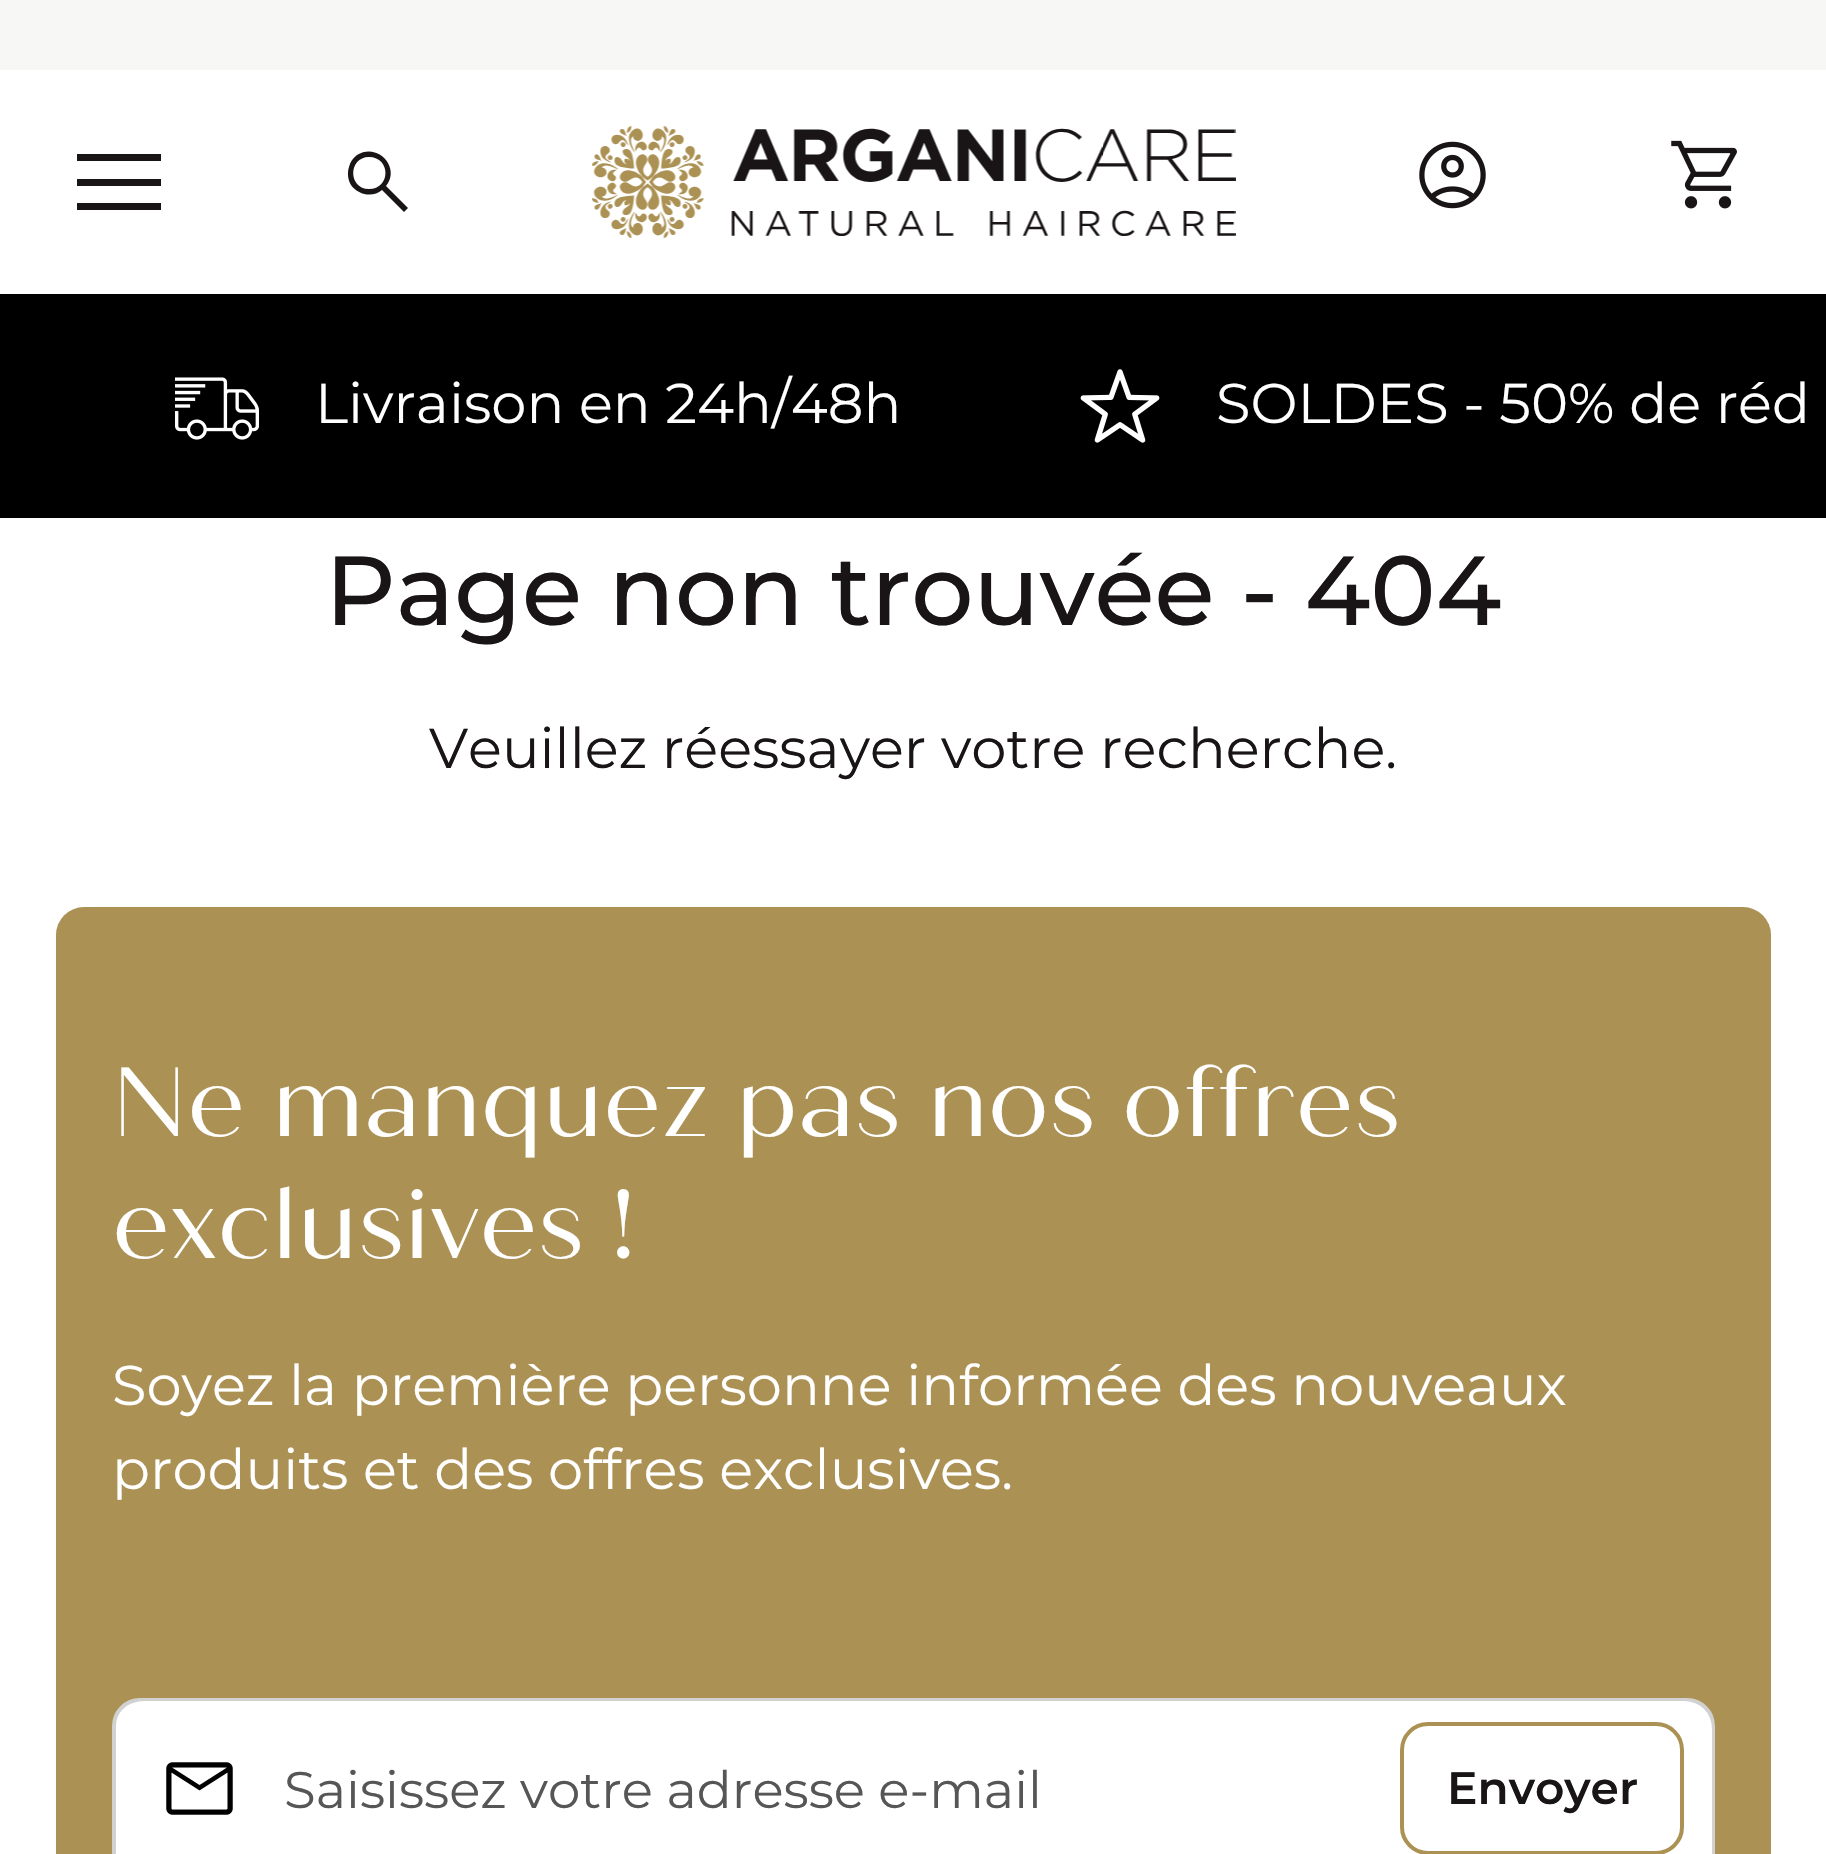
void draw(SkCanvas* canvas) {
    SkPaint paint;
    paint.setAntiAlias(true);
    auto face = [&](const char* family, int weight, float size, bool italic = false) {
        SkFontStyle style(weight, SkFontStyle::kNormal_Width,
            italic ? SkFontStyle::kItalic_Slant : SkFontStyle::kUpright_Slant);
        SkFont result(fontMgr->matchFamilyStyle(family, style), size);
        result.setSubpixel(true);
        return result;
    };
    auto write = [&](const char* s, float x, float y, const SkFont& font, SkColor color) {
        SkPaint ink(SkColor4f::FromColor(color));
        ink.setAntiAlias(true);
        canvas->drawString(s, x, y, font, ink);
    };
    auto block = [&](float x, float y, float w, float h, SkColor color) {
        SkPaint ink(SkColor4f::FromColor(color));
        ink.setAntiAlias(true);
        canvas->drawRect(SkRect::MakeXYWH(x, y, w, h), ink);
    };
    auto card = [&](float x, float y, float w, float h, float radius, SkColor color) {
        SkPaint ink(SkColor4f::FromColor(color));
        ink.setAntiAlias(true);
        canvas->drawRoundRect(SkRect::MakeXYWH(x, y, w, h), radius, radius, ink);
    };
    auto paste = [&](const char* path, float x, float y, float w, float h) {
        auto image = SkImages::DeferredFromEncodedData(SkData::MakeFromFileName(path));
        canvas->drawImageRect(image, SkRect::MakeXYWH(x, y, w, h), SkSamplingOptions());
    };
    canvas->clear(SK_ColorWHITE);
    block(0, 0, 1826, 70, SkColorSetRGB(247, 247, 246));
    block(77, 154, 84, 7, SkColorSetRGB(25, 20, 21));
    block(77, 179, 84, 7, SkColorSetRGB(25, 20, 21));
    block(77, 203, 84, 7, SkColorSetRGB(25, 20, 21));
    paint.setColor(SkColorSetRGB(25, 20, 21));
    canvas->drawPath(SkPathBuilder().moveTo(404, 212).lineTo(382, 190).cubicTo(373, 198, 358, 195, 351, 185).cubicTo(348, 180, 347, 173, 349, 167).cubicTo(350, 162, 353, 158, 357, 155).cubicTo(378, 142, 401, 168, 386, 186).lineTo(408, 208).close().moveTo(369, 189).cubicTo(391, 189, 391, 157, 369, 157).cubicTo(348, 157, 348, 189, 369, 189).close().detach(), paint);
    paste("pic1.png", 592, 126, 644, 112);
    paste("pic2.png", 1419, 141, 67, 68);
    paste("pic3.png", 1671, 140, 66, 69);
    block(0, 294, 1826, 224, SK_ColorBLACK);
    paste("pic4.png", 175, 377, 84, 63);
    auto kFont1 = face("Montserrat", 400, 56);
    write("Livraison en 24h/48h", 315, 423, kFont1, SK_ColorWHITE);
    paste("pic5.png", 1080, 369, 80, 74);
    write("SOLDES - 50% de réd", 1216, 423, kFont1, SK_ColorWHITE);
    auto kFont2 = face("Montserrat", 500, 98);
    write("Page non trouvée - 404", 325, 625, kFont2, SkColorSetRGB(25, 20, 21));
    write("Veuillez réessayer votre recherche.", 429, 768, kFont1, SkColorSetRGB(25, 20, 21));
    card(56, 907, 1715, 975, 28, SkColorSetRGB(171, 145, 83));
    auto kFont3 = face("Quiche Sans", 400, 98);
    write("Ne manquez pas nos offres", 112, 1136, kFont3, SK_ColorWHITE);
    write("exclusives !", 112, 1258, kFont3, SK_ColorWHITE);
    write("Soyez la première personne informée des nouveaux", 112, 1405, kFont1, SK_ColorWHITE);
    write("produits et des offres exclusives.", 112, 1489, kFont1, SK_ColorWHITE);
    paint.setColor(SK_ColorWHITE);
    canvas->drawRoundRect(SkRect::MakeXYWH(114, 1700, 1599, 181), 26, 26, paint);
    paint.setStyle(SkPaint::kStroke_Style);
    paint.setStrokeWidth(4);
    paint.setColor(SkColorSetRGB(209, 209, 209));
    canvas->drawRoundRect(SkRect::MakeXYWH(114, 1700, 1599, 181), 26, 26, paint);
    card(116, 1701, 1596, 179, 28, SK_ColorWHITE);
    paste("pic6.png", 166, 1762, 67, 53);
    auto kFont4 = face("Montserrat", 400, 51.5f);
    write("Saisissez votre adresse e-mail", 284, 1808, kFont4, SkColorSetRGB(86, 86, 86));
    paint.setColor(SkColorSetRGB(171, 145, 83));
    canvas->drawRoundRect(SkRect::MakeXYWH(1402, 1724, 280, 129), 26, 26, paint);
    auto kFont5 = face("Montserrat", 600, 45.5f);
    write("Envoyer", 1447, 1804, kFont5, SkColorSetRGB(25, 20, 21));
}
